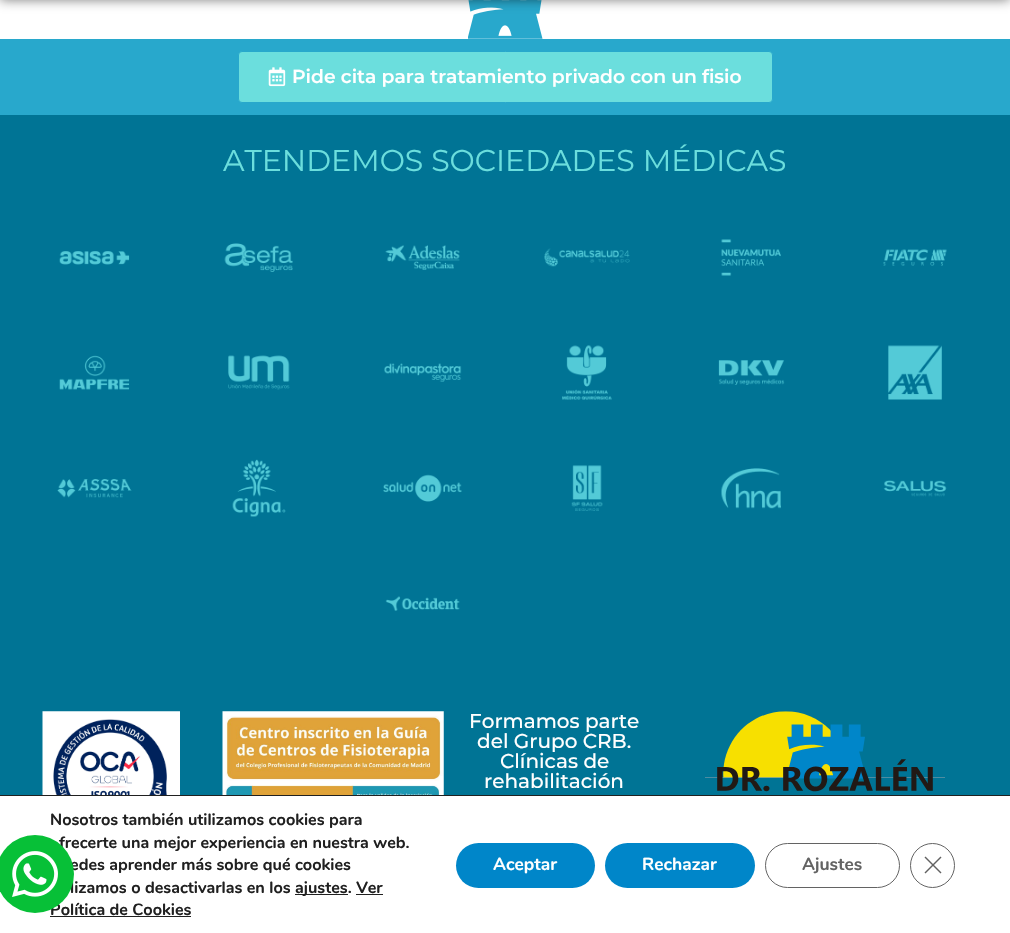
void draw(SkCanvas* canvas) {
    SkPaint paint;
    paint.setAntiAlias(true);
    auto face = [&](const char* family, int weight, float size, bool italic = false) {
        SkFontStyle style(weight, SkFontStyle::kNormal_Width,
            italic ? SkFontStyle::kItalic_Slant : SkFontStyle::kUpright_Slant);
        SkFont result(fontMgr->matchFamilyStyle(family, style), size);
        result.setSubpixel(true);
        return result;
    };
    auto write = [&](const char* s, float x, float y, const SkFont& font, SkColor color) {
        SkPaint ink(SkColor4f::FromColor(color));
        ink.setAntiAlias(true);
        canvas->drawString(s, x, y, font, ink);
    };
    auto block = [&](float x, float y, float w, float h, SkColor color) {
        SkPaint ink(SkColor4f::FromColor(color));
        ink.setAntiAlias(true);
        canvas->drawRect(SkRect::MakeXYWH(x, y, w, h), ink);
    };
    auto card = [&](float x, float y, float w, float h, float radius, SkColor color) {
        SkPaint ink(SkColor4f::FromColor(color));
        ink.setAntiAlias(true);
        canvas->drawRoundRect(SkRect::MakeXYWH(x, y, w, h), radius, radius, ink);
    };
    auto paste = [&](const char* path, float x, float y, float w, float h) {
        auto image = SkImages::DeferredFromEncodedData(SkData::MakeFromFileName(path));
        canvas->drawImageRect(image, SkRect::MakeXYWH(x, y, w, h), SkSamplingOptions());
    };
    canvas->clear(SK_ColorWHITE);
    paste("pic1.png", 468, 0, 75, 39);
    paint.setColor(SkColorSetARGB(128, 0, 0, 0));
    paint.setMaskFilter(SkMaskFilter::MakeBlur(kNormal_SkBlurStyle, 6));
    canvas->drawRect(SkRect::MakeXYWH(0, -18, 1010, 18), paint);
    paint.setMaskFilter(nullptr);
    block(0, 39, 1010, 76, SkColorSetRGB(40, 168, 204));
    paint.setColor(SkColorSetRGB(107, 222, 221));
    canvas->drawRoundRect(SkRect::MakeXYWH(238.5f, 51.5f, 534, 51), 3.5f, 3.5f, paint);
    paint.setStyle(SkPaint::kStroke_Style);
    paint.setStrokeWidth(1);
    paint.setColor(SkColorSetRGB(40, 168, 204));
    canvas->drawRoundRect(SkRect::MakeXYWH(238.5f, 51.5f, 534, 51), 3.5f, 3.5f, paint);
    paste("pic2.png", 268, 67, 18, 20);
    auto kFont1 = face("Montserrat", 600, 18.75f);
    write("Pide cita para tratamiento privado con un fisio", 292, 83, kFont1, SK_ColorWHITE);
    block(0, 115, 1010, 680, SkColorSetRGB(0, 116, 149));
    auto kFont2 = face("Montserrat", 400, 30);
    write("ATENDEMOS SOCIEDADES MÉDICAS", 223, 171, kFont2, SkColorSetRGB(107, 222, 221));
    paste("pic3.png", 59, 251, 71, 14);
    paste("pic4.png", 224, 243, 69, 29);
    paste("pic5.png", 385, 245, 75, 25);
    paste("pic6.png", 544, 248, 86, 19);
    paste("pic7.png", 721, 239, 60, 37);
    paste("pic8.png", 883, 249, 64, 17);
    paste("pic9.png", 59, 355, 71, 35);
    paste("pic10.png", 228, 355, 62, 35);
    paste("pic11.png", 384, 363, 78, 19);
    paste("pic12.png", 562, 345, 50, 55);
    paste("pic13.png", 718, 360, 67, 25);
    paste("pic14.png", 888, 345, 54, 55);
    paste("pic15.png", 57, 479, 75, 19);
    paste("pic16.png", 232, 459, 54, 58);
    paste("pic17.png", 383, 474, 79, 28);
    paste("pic18.png", 571, 465, 32, 46);
    paste("pic19.png", 721, 468, 60, 41);
    paste("pic20.png", 883, 480, 64, 17);
    paste("pic21.png", 385, 596, 75, 15);
    paste("pic22.png", 42, 711, 138, 84);
    paste("pic23.png", 222, 711, 222, 84);
    auto kFont3 = face("Montserrat", 500, 20);
    write("Formamos parte", 469, 728, kFont3, SK_ColorWHITE);
    write("del Grupo CRB.", 477, 748, kFont3, SK_ColorWHITE);
    write("Clínicas de", 500, 768, kFont3, SK_ColorWHITE);
    write("rehabilitación", 484, 788, kFont3, SK_ColorWHITE);
    paste("pic24.png", 705, 711, 240, 81);
    auto kFont4 = face("Nunito", 700, 16.25f);
    write("frecerte una mejor experiencia en nuestra web.", 59, 848, kFont4, SkColorSetRGB(32, 32, 32));
    write("edes aprender más sobre qué cookies", 70, 870, kFont4, SkColorSetRGB(32, 32, 32));
    write("lizamos o desactivarlas en los", 70, 893, kFont4, SkColorSetRGB(32, 32, 32));
    write("Política de Cookies", 50, 915, kFont4, SkColorSetRGB(32, 32, 32));
    paint.setStyle(SkPaint::kFill_Style);
    paint.setColor(SkColorSetRGB(7, 192, 55));
    canvas->drawCircle(35, 874, 39, paint);
    paste("pic25.png", 12, 851, 46, 46);
    block(0, 795, 1010, 1, SkColorSetRGB(32, 32, 32));
    write("Nosotros también utilizamos cookies para", 50, 825, kFont4, SkColorSetRGB(32, 32, 32));
    block(295, 894, 53, 1, SkColorSetRGB(32, 32, 32));
    write("ajustes. Ver", 295, 893, kFont4, SkColorSetRGB(32, 32, 32));
    block(356, 894, 27, 1, SkColorSetRGB(32, 32, 32));
    block(50, 916, 141, 1, SkColorSetRGB(32, 32, 32));
    card(456, 843, 139, 45, 22.5f, SkColorSetRGB(0, 134, 201));
    auto kFont5 = face("Nunito", 700, 17.5f);
    write("Aceptar", 493, 870, kFont5, SK_ColorWHITE);
    card(605, 843, 150, 45, 22.5f, SkColorSetRGB(0, 134, 201));
    write("Rechazar", 642, 870, kFont5, SK_ColorWHITE);
    paint.setStyle(SkPaint::kStroke_Style);
    paint.setColor(SkColorSetRGB(99, 99, 99));
    canvas->drawRoundRect(SkRect::MakeXYWH(765.5f, 843.5f, 134, 44), 22, 22, paint);
    write("Ajustes", 802, 870, kFont5, SkColorSetRGB(99, 99, 99));
    paint.setColor(SkColorSetRGB(98, 98, 98));
    canvas->drawCircle(932.5f, 865.5f, 22, paint);
    paint.setStyle(SkPaint::kFill_Style);
    canvas->drawPath(SkPathBuilder().moveTo(940.5f, 856.5f).lineTo(941.5f, 857.5f).lineTo(925.5f, 873.5f).lineTo(924.5f, 872.5f).close().detach(), paint);
    canvas->drawPath(SkPathBuilder().moveTo(924.5f, 857.5f).lineTo(925.5f, 856.5f).lineTo(941.5f, 872.5f).lineTo(940.5f, 873.5f).close().detach(), paint);
}
